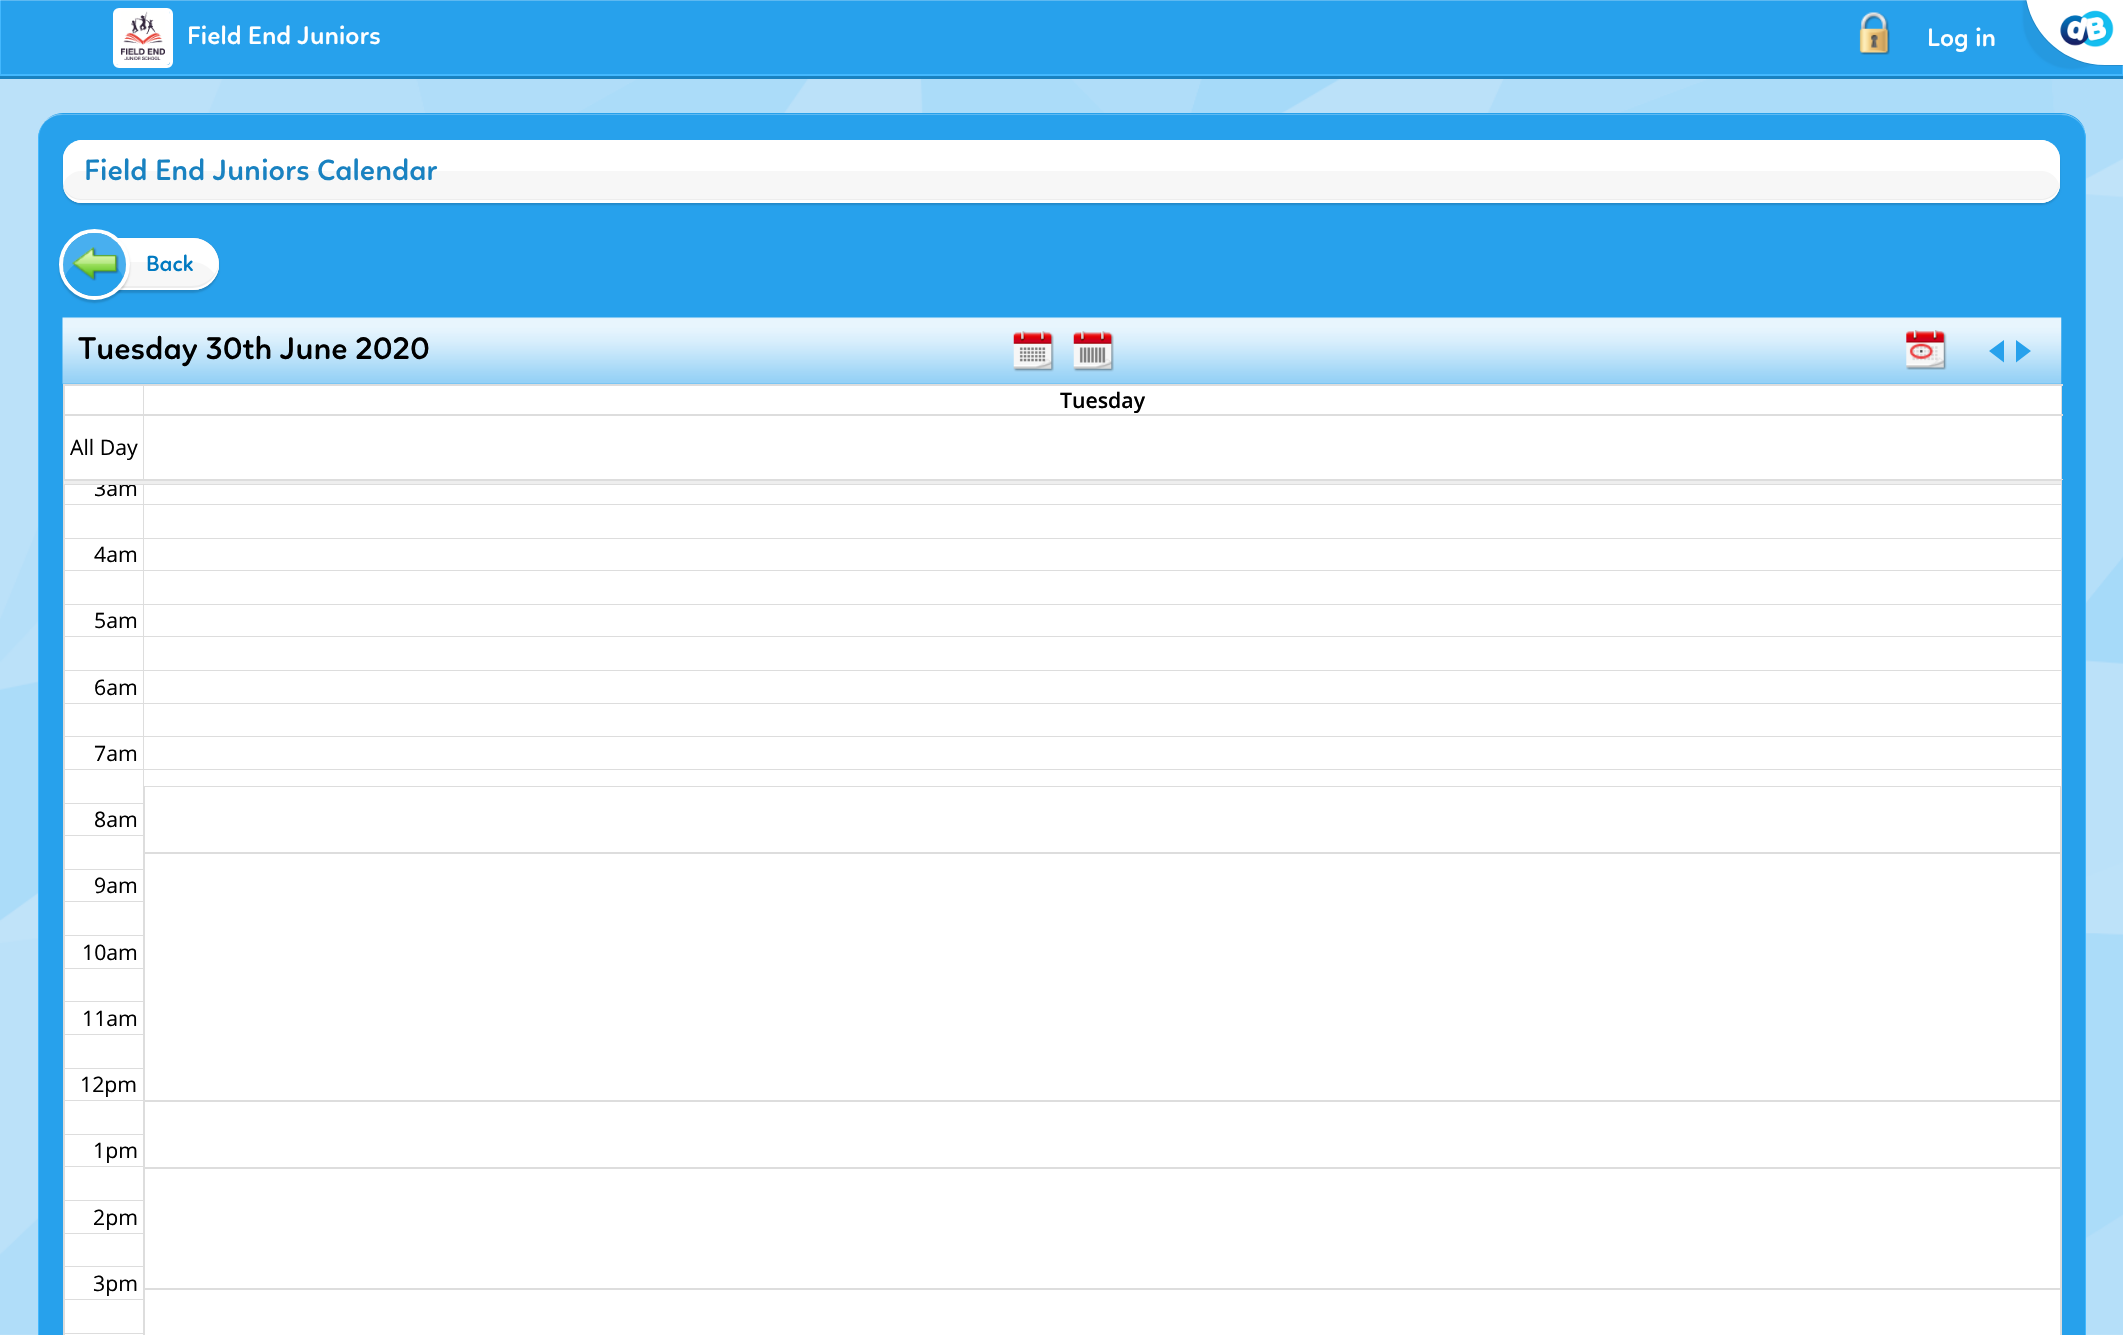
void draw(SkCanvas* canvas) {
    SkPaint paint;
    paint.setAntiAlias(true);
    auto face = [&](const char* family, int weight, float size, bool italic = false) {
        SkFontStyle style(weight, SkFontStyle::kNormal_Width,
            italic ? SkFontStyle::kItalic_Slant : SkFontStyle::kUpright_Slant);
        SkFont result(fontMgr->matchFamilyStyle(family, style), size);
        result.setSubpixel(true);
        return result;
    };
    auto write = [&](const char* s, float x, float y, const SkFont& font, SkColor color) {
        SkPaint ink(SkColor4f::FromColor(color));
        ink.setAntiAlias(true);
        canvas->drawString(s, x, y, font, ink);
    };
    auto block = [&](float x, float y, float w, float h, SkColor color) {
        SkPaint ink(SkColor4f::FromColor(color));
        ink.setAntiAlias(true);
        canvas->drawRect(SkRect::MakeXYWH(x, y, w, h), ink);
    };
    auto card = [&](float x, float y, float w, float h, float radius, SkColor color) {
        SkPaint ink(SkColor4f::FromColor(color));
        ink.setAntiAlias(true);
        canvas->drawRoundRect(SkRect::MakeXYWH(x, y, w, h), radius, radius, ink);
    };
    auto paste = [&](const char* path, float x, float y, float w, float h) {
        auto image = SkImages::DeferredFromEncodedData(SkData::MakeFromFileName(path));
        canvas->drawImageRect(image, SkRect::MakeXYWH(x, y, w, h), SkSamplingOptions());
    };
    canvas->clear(SK_ColorWHITE);
    paste("pic1.png", 0, 79, 2123, 1256);
    paint.setColor(SkColorSetRGB(25, 130, 193));
    canvas->drawPath(SkPathBuilder().moveTo(0, 76).lineTo(0, 79).lineTo(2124, 79).lineTo(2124, 3).lineTo(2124, 76).close().detach(), paint);
    block(1, 0, 2121, 74, SkColorSetRGB(39, 161, 236));
    canvas->save();
    canvas->clipRect(SkRect::MakeXYWH(0, 0, 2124, 76));
    paint.setColor(SkColorSetRGB(67, 184, 254));
    canvas->drawPath(SkPathBuilder(SkPathFillType::kEvenOdd).moveTo(-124, -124).lineTo(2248, -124).lineTo(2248, 200).lineTo(-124, 200).close().moveTo(1, 0).lineTo(2122, 0).lineTo(2122, 74).lineTo(1, 74).close().detach(), paint);
    canvas->restore();
    block(0, 0, 2027, 1, SkColorSetARGB(64, 255, 255, 255));
    paint.setStyle(SkPaint::kStroke_Style);
    paint.setStrokeWidth(3);
    paint.setColor(SK_ColorWHITE);
    canvas->drawRoundRect(SkRect::MakeXYWH(114.5f, 9.5f, 57, 57), 4.5f, 4.5f, paint);
    paste("pic2.png", 116, 11, 54, 54);
    auto kFont1 = face("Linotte", 600, 25.75f);
    write("Field End Juniors", 187, 44, kFont1, SK_ColorWHITE);
    paste("pic3.png", 1859, 12, 31, 43);
    write("Log in", 1927, 46, kFont1, SK_ColorWHITE);
    paint.setStyle(SkPaint::kFill_Style);
    paint.setColor(SkColorSetARGB(13, 0, 0, 0));
    paint.setMaskFilter(SkMaskFilter::MakeBlur(kNormal_SkBlurStyle, 1));
    canvas->drawRoundRect(SkRect::MakeXYWH(2023, -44, 98, 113), 80, 80, paint);
    paint.setMaskFilter(nullptr);
    paint.setStyle(SkPaint::kStroke_Style);
    paint.setStrokeWidth(1);
    paint.setColor(SkColorSetARGB(31, 0, 0, 0));
    canvas->drawPath(SkPathBuilder().moveTo(2024.5f, -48.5f).lineTo(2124.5f, -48.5f).lineTo(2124.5f, 65.5f).lineTo(2105, 65.5f).cubicTo(2060.5f, 65.5f, 2024.5f, 29.5f, 2024.5f, -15).close().detach(), paint);
    paint.setStyle(SkPaint::kFill_Style);
    paint.setColor(SK_ColorWHITE);
    canvas->drawPath(SkPathBuilder().moveTo(2025, -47).lineTo(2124, -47).lineTo(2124, 65).lineTo(2105, 65).cubicTo(2061, 65, 2025, 29, 2025, -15).close().detach(), paint);
    paste("pic4.png", 2060, 10, 54, 38);
    paint.setColor(SkColorSetRGB(39, 161, 236));
    canvas->drawPath(SkPathBuilder().moveTo(63, 113).cubicTo(54, 113, 46, 118, 42, 125).cubicTo(46, 118, 54, 114, 62, 114).lineTo(2061, 114).cubicTo(2072, 114, 2081, 121, 2085, 130).cubicTo(2082, 120, 2072, 113, 2061, 113).close().detach(), paint);
    card(38, 114, 2048, 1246, 25, SkColorSetRGB(39, 161, 236));
    paint.setColor(SkColorSetRGB(67, 184, 254));
    canvas->drawPath(SkPathBuilder().moveTo(2086, 139).cubicTo(2086, 125, 2075, 114, 2061, 114).cubicTo(2074, 114, 2085, 124, 2085, 138).lineTo(2085, 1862).cubicTo(2085, 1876, 2074, 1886, 2061, 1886).lineTo(62, 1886).cubicTo(49, 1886, 39, 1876, 39, 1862).lineTo(39, 138).cubicTo(39, 133, 41, 128, 43, 124).cubicTo(40, 128, 38, 133, 38, 139).lineTo(38, 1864).cubicTo(38, 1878, 49, 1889, 63, 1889).lineTo(2061, 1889).cubicTo(2075, 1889, 2086, 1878, 2086, 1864).close().detach(), paint);
    paint.setColor(SkColorSetARGB(64, 255, 255, 255));
    canvas->drawPath(SkPathBuilder().moveTo(62, 115).lineTo(2061, 115).cubicTo(2075, 115, 2086, 126, 2086, 140).cubicTo(2086, 126, 2075, 114, 2061, 114).lineTo(63, 114).cubicTo(49, 114, 38, 126, 38, 140).cubicTo(38, 126, 49, 115, 62, 115).close().detach(), paint);
    paint.setColor(SkColorSetARGB(38, 0, 0, 0));
    paint.setMaskFilter(SkMaskFilter::MakeBlur(kNormal_SkBlurStyle, 1));
    canvas->drawRoundRect(SkRect::MakeXYWH(63, 143, 1997, 62), 19, 19, paint);
    paint.setMaskFilter(nullptr);
    card(63, 140, 1997, 63, 19, SkColorSetRGB(247, 247, 247));
    paint.setColor(SK_ColorWHITE);
    canvas->drawPath(SkPathBuilder().moveTo(81, 171).lineTo(2041, 171).cubicTo(2051, 171, 2058, 178, 2060, 187).lineTo(2060, 159).cubicTo(2060, 149, 2051, 140, 2041, 140).lineTo(82, 140).cubicTo(72, 140, 63, 149, 63, 159).lineTo(63, 184).cubicTo(66, 177, 73, 171, 81, 171).close().detach(), paint);
    paint.setColor(SkColorSetRGB(237, 237, 237));
    canvas->drawPath(SkPathBuilder().moveTo(63, 186).cubicTo(64, 196, 72, 203, 82, 203).lineTo(2041, 203).cubicTo(2051, 203, 2060, 194, 2060, 184).lineTo(2060, 180).cubicTo(2060, 190, 2052, 199, 2041, 199).lineTo(81, 199).cubicTo(73, 199, 66, 193, 63, 186).close().detach(), paint);
    paint.setColor(SK_ColorWHITE);
    canvas->drawPath(SkPathBuilder().moveTo(64, 189).cubicTo(66, 197, 73, 203, 82, 203).lineTo(2041, 203).cubicTo(2051, 203, 2060, 194, 2060, 184).lineTo(2060, 181).cubicTo(2060, 192, 2052, 200, 2041, 200).lineTo(81, 200).cubicTo(74, 200, 67, 196, 64, 189).close().detach(), paint);
    auto kFont2 = face("Linotte", 600, 30);
    write("Field End Juniors Calendar", 84, 180, kFont2, SkColorSetRGB(25, 130, 193));
    paint.setColor(SkColorSetARGB(38, 0, 0, 0));
    paint.setMaskFilter(SkMaskFilter::MakeBlur(kNormal_SkBlurStyle, 1));
    canvas->drawRoundRect(SkRect::MakeXYWH(63, 240, 156, 53), 26.5f, 26.5f, paint);
    paint.setMaskFilter(nullptr);
    paint.setColor(SkColorSetARGB(51, 0, 0, 0));
    paint.setMaskFilter(SkMaskFilter::MakeBlur(kNormal_SkBlurStyle, 0.5f));
    canvas->drawRoundRect(SkRect::MakeXYWH(63, 238, 156, 52), 26, 26, paint);
    paint.setMaskFilter(nullptr);
    card(63, 238, 156, 52, 26, SkColorSetRGB(247, 247, 247));
    paint.setColor(SK_ColorWHITE);
    canvas->drawPath(SkPathBuilder().moveTo(89, 262).lineTo(192, 262).cubicTo(202, 262, 211, 268, 216, 276).cubicTo(218, 273, 219, 268, 219, 264).cubicTo(219, 250, 207, 238, 193, 238).lineTo(89, 238).cubicTo(75, 238, 63, 250, 63, 264).cubicTo(63, 268, 64, 272, 66, 275).cubicTo(70, 267, 79, 262, 89, 262).close().detach(), paint);
    paint.setColor(SkColorSetRGB(237, 237, 237));
    canvas->drawPath(SkPathBuilder().moveTo(63, 268).cubicTo(65, 280, 76, 290, 89, 290).lineTo(193, 290).cubicTo(207, 290, 219, 278, 219, 264).lineTo(219, 262).cubicTo(218, 275, 206, 286, 192, 286).lineTo(89, 286).cubicTo(77, 286, 67, 278, 63, 268).close().detach(), paint);
    paint.setColor(SK_ColorWHITE);
    canvas->drawPath(SkPathBuilder().moveTo(64, 272).cubicTo(67, 282, 77, 290, 89, 290).lineTo(193, 290).cubicTo(207, 290, 219, 278, 219, 264).lineTo(219, 263).cubicTo(218, 277, 206, 288, 192, 288).lineTo(89, 288).cubicTo(78, 288, 68, 281, 64, 272).close().detach(), paint);
    paint.setColor(SkColorSetARGB(38, 0, 0, 0));
    paint.setMaskFilter(SkMaskFilter::MakeBlur(kNormal_SkBlurStyle, 1));
    canvas->drawRoundRect(SkRect::MakeXYWH(59, 231, 71, 72), 35.5f, 35.5f, paint);
    paint.setMaskFilter(nullptr);
    paint.setStyle(SkPaint::kStroke_Style);
    paint.setStrokeWidth(4);
    paint.setColor(SK_ColorWHITE);
    canvas->drawCircle(94.5f, 264.5f, 33.5f, paint);
    paint.setStyle(SkPaint::kFill_Style);
    paint.setColor(SkColorSetRGB(39, 161, 236));
    canvas->drawCircle(94.5f, 264.5f, 31.5f, paint);
    paint.setColor(SkColorSetARGB(38, 255, 255, 255));
    canvas->drawPath(SkPathBuilder().moveTo(94, 258).cubicTo(107, 258, 119, 266, 123, 277).cubicTo(127, 269, 127, 260, 124, 252).cubicTo(121, 247, 117, 242, 112, 238).cubicTo(86, 221, 54, 248, 65, 276).cubicTo(70, 265, 82, 258, 94, 258).close().detach(), paint);
    paste("pic5.png", 72, 247, 47, 34);
    auto kFont3 = face("Linotte", 600, 22.5f);
    write("Back", 146, 271, kFont3, SkColorSetRGB(1, 122, 193));
    paste("pic6.png", 62, 317, 2000, 67);
    auto kFont4 = face("Linotte", 600, 31.9f);
    write("Tuesday 30th June 2020", 78, 359, kFont4, SK_ColorBLACK);
    paste("pic7.png", 1013, 331, 41, 41);
    paste("pic8.png", 1073, 331, 41, 41);
    paste("pic9.png", 1906, 330, 41, 40);
    paint.setColor(SkColorSetRGB(39, 161, 236));
    canvas->drawPath(SkPathBuilder().moveTo(2004, 340).lineTo(2004, 362.5f).lineTo(1989, 351).close().moveTo(2016, 362.5f).lineTo(2016, 340).lineTo(2031, 351).close().detach(), paint);
    block(65, 386, 1996, 949, SK_ColorWHITE);
    block(63, 384, 2000, 1, SkColorSetRGB(221, 221, 221));
    block(63, 415, 2000, 1, SkColorSetRGB(221, 221, 221));
    block(2061, 415, 1, 920, SkColorSetRGB(221, 221, 221));
    block(2061, 384, 1, 32, SkColorSetRGB(221, 221, 221));
    block(63, 415, 1, 920, SkColorSetRGB(221, 221, 221));
    block(63, 384, 1, 32, SkColorSetRGB(221, 221, 221));
    block(143, 385, 1920, 1, SkColorSetRGB(221, 221, 221));
    block(143, 414, 1920, 1, SkColorSetRGB(221, 221, 221));
    block(143, 385, 1, 30, SkColorSetRGB(221, 221, 221));
    block(64, 385, 80, 1, SkColorSetRGB(221, 221, 221));
    block(64, 414, 80, 1, SkColorSetRGB(221, 221, 221));
    block(64, 385, 1, 30, SkColorSetRGB(221, 221, 221));
    auto kFont5 = face("Open Sans", 600, 21.25f);
    write("Tuesday", 1060, 408, kFont5, SK_ColorBLACK);
    block(143, 479, 1920, 1, SkColorSetRGB(221, 221, 221));
    block(143, 415, 1, 65, SkColorSetRGB(221, 221, 221));
    block(64, 479, 80, 1, SkColorSetRGB(221, 221, 221));
    block(64, 415, 1, 65, SkColorSetRGB(221, 221, 221));
    auto kFont6 = face("Open Sans", 400, 21.25f);
    write("All Day", 70, 455, kFont6, SK_ColorBLACK);
    block(64, 481, 1997, 3, SkColorSetRGB(238, 238, 238));
    block(64, 480, 1997, 1, SkColorSetRGB(221, 221, 221));
    block(64, 484, 1997, 1, SkColorSetRGB(221, 221, 221));
    block(64, 485, 1, 850, SkColorSetRGB(221, 221, 221));
    block(143, 485, 1, 850, SkColorSetRGB(221, 221, 221));
    canvas->save();
    canvas->clipRect(SkRect::MakeXYWH(64, 485, 1997, 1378));
    write("3am", 94, 496, kFont6, SK_ColorBLACK);
    canvas->restore();
    block(64, 504, 1997, 1, SkColorSetRGB(221, 221, 221));
    block(64, 538, 1997, 1, SkColorSetRGB(221, 221, 221));
    write("4am", 94, 562, kFont6, SK_ColorBLACK);
    block(64, 570, 1997, 1, SkColorSetRGB(221, 221, 221));
    block(64, 604, 1997, 1, SkColorSetRGB(221, 221, 221));
    write("5am", 94, 628, kFont6, SK_ColorBLACK);
    block(64, 636, 1997, 1, SkColorSetRGB(221, 221, 221));
    block(64, 670, 1997, 1, SkColorSetRGB(221, 221, 221));
    write("6am", 94, 695, kFont6, SK_ColorBLACK);
    block(64, 703, 1997, 1, SkColorSetRGB(221, 221, 221));
    block(64, 736, 1997, 1, SkColorSetRGB(221, 221, 221));
    write("7am", 94, 761, kFont6, SK_ColorBLACK);
    block(64, 769, 1997, 1, SkColorSetRGB(221, 221, 221));
    block(64, 803, 80, 1, SkColorSetRGB(221, 221, 221));
    write("8am", 94, 827, kFont6, SK_ColorBLACK);
    block(64, 835, 80, 1, SkColorSetRGB(221, 221, 221));
    block(64, 869, 80, 1, SkColorSetRGB(221, 221, 221));
    write("9am", 94, 893, kFont6, SK_ColorBLACK);
    block(64, 901, 80, 1, SkColorSetRGB(221, 221, 221));
    block(64, 935, 80, 1, SkColorSetRGB(221, 221, 221));
    write("10am", 82, 960, kFont6, SK_ColorBLACK);
    block(64, 968, 80, 1, SkColorSetRGB(221, 221, 221));
    block(64, 1001, 80, 1, SkColorSetRGB(221, 221, 221));
    write("11am", 82, 1026, kFont6, SK_ColorBLACK);
    block(64, 1034, 80, 1, SkColorSetRGB(221, 221, 221));
    block(64, 1068, 80, 1, SkColorSetRGB(221, 221, 221));
    write("12pm", 80, 1092, kFont6, SK_ColorBLACK);
    block(64, 1100, 80, 1, SkColorSetRGB(221, 221, 221));
    block(64, 1134, 80, 1, SkColorSetRGB(221, 221, 221));
    write("1pm", 93, 1158, kFont6, SK_ColorBLACK);
    block(64, 1166, 80, 1, SkColorSetRGB(221, 221, 221));
    block(64, 1200, 80, 1, SkColorSetRGB(221, 221, 221));
    write("2pm", 93, 1225, kFont6, SK_ColorBLACK);
    block(64, 1233, 80, 1, SkColorSetRGB(221, 221, 221));
    block(64, 1266, 80, 1, SkColorSetRGB(221, 221, 221));
    write("3pm", 93, 1291, kFont6, SK_ColorBLACK);
    block(64, 1299, 80, 1, SkColorSetRGB(221, 221, 221));
    block(64, 1333, 80, 1, SkColorSetRGB(221, 221, 221));
    paint.setStyle(SkPaint::kStroke_Style);
    paint.setStrokeWidth(1);
    paint.setColor(SkColorSetRGB(221, 221, 221));
    canvas->drawRect(SkRect::MakeXYWH(144.5f, 786.5f, 1916, 66), paint);
    canvas->drawRect(SkRect::MakeXYWH(144.5f, 853.5f, 1916, 247), paint);
    canvas->drawRect(SkRect::MakeXYWH(144.5f, 1101.5f, 1916, 66), paint);
    canvas->drawRect(SkRect::MakeXYWH(144.5f, 1168.5f, 1916, 120), paint);
    canvas->drawRect(SkRect::MakeXYWH(144.5f, 1289.5f, 1916, 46), paint);
}
